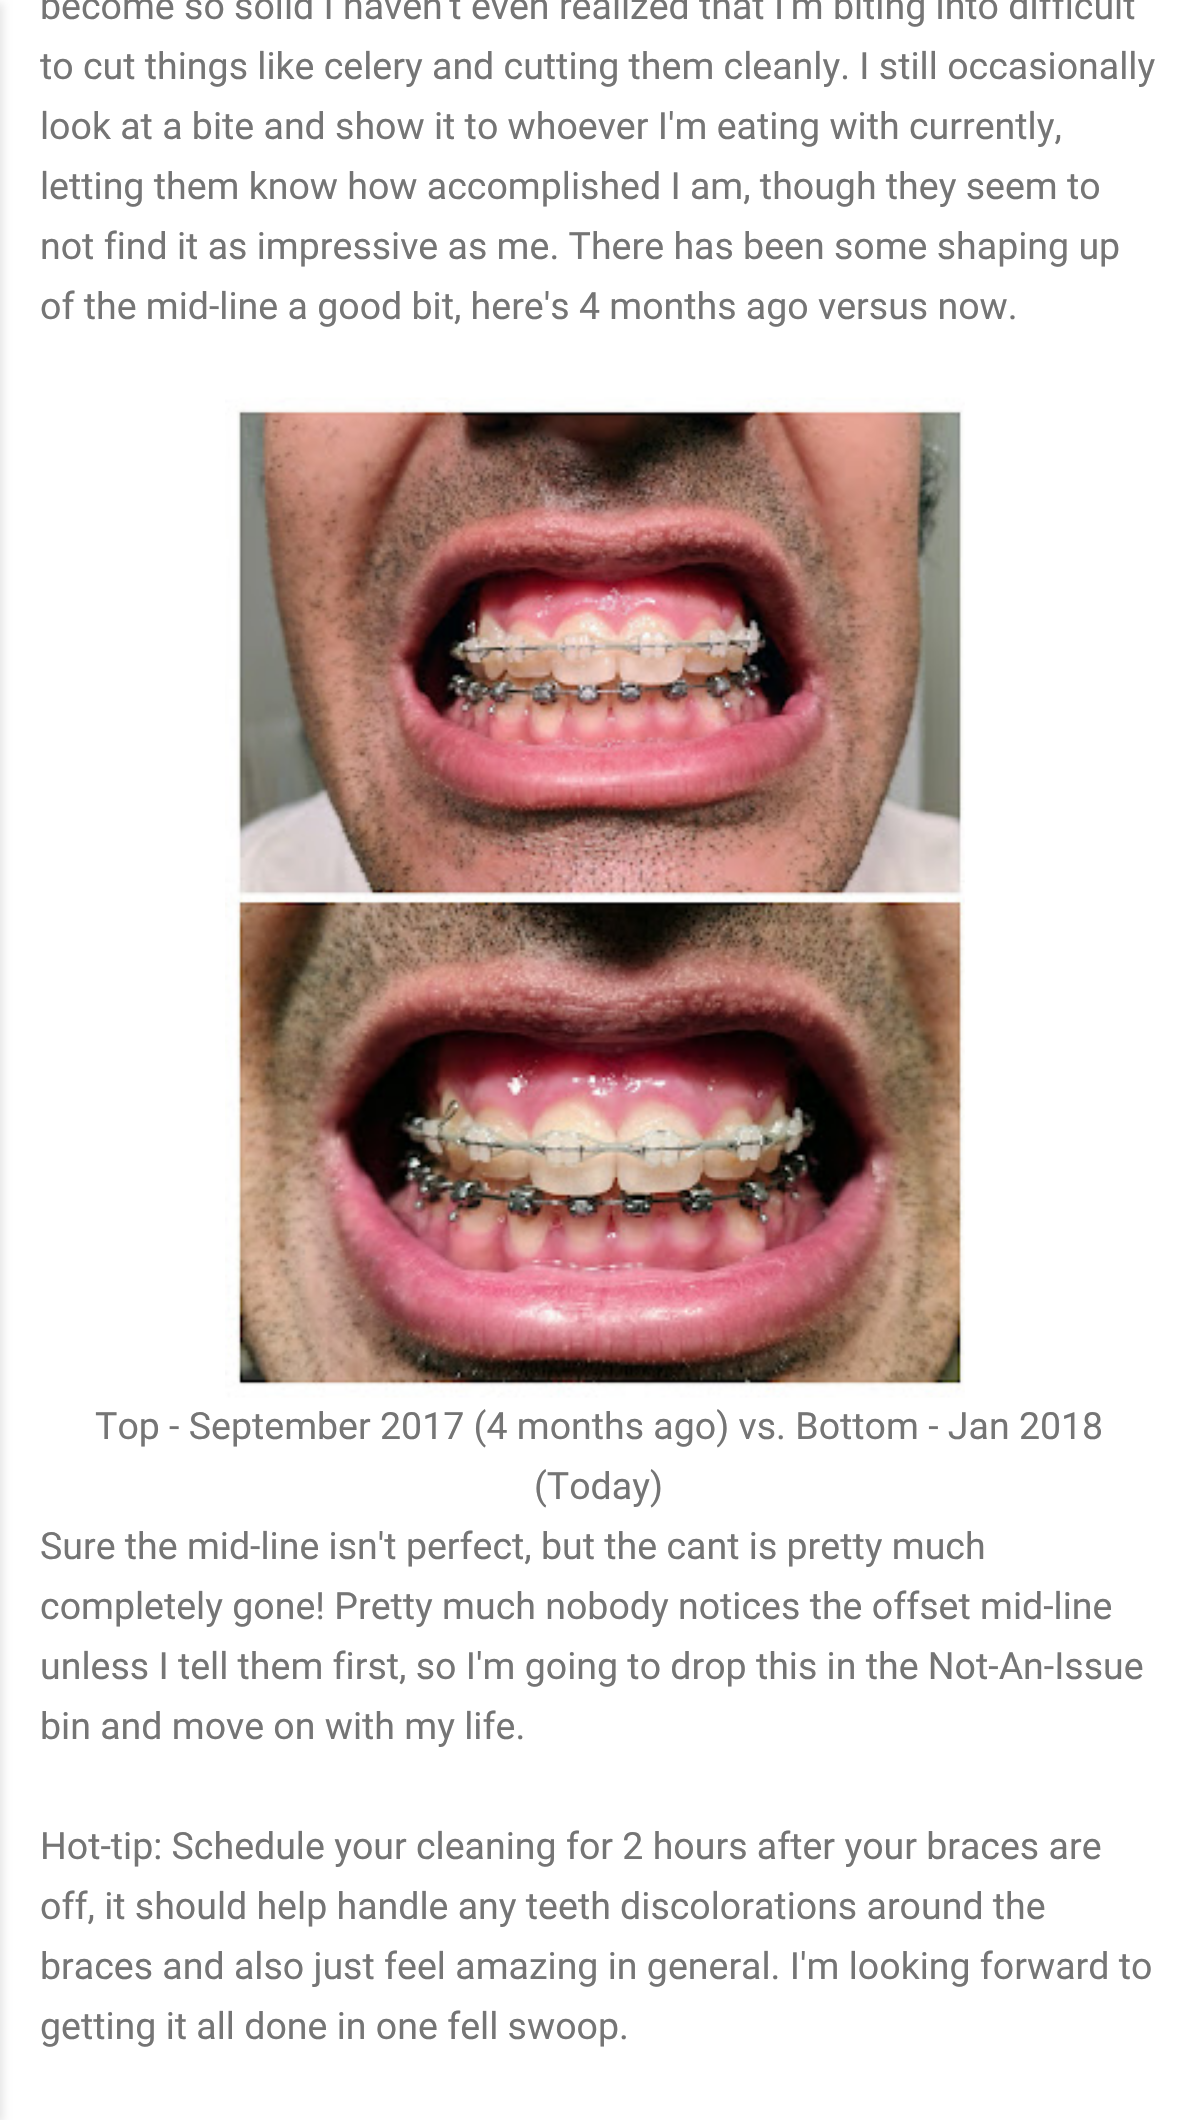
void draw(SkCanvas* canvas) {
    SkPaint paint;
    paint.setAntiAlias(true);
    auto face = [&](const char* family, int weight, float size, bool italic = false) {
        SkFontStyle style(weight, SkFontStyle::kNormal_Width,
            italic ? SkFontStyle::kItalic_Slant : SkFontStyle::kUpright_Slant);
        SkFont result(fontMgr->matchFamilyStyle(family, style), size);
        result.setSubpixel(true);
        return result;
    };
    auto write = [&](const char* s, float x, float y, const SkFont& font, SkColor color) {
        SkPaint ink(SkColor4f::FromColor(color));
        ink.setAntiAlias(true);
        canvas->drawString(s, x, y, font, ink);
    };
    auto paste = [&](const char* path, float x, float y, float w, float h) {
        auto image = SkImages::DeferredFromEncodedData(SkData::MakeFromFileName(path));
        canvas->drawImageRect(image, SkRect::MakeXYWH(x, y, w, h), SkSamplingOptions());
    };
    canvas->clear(SK_ColorWHITE);
    paint.setColor(SkColorSetARGB(26, 0, 0, 0));
    paint.setMaskFilter(SkMaskFilter::MakeBlur(kNormal_SkBlurStyle, 4));
    canvas->drawRect(SkRect::MakeXYWH(-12, 3, 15, 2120), paint);
    paint.setMaskFilter(nullptr);
    auto kFont1 = face("Roboto", 400, 37.5f);
    write("become so solid I haven't even realized that I'm biting into difficult", 40, 19, kFont1, SkColorSetRGB(117, 117, 117));
    write("to cut things like celery and cutting them cleanly. I still occasionally", 40, 79, kFont1, SkColorSetRGB(117, 117, 117));
    write("look at a bite and show it to whoever I'm eating with currently,", 40, 139, kFont1, SkColorSetRGB(117, 117, 117));
    write("letting them know how accomplished I am, though they seem to", 40, 199, kFont1, SkColorSetRGB(117, 117, 117));
    write("not find it as impressive as me. There has been some shaping up", 40, 259, kFont1, SkColorSetRGB(117, 117, 117));
    write("of the mid-line a good bit, here's 4 months ago versus now.", 40, 319, kFont1, SkColorSetRGB(117, 117, 117));
    paste("pic1.png", 225, 397, 740, 1001);
    write("Top - September 2017 (4 months ago) vs. Bottom - Jan 2018", 95, 1439, kFont1, SkColorSetRGB(117, 117, 117));
    write("(Today)", 534, 1499, kFont1, SkColorSetRGB(117, 117, 117));
    write("Sure the mid-line isn't perfect, but the cant is pretty much", 40, 1559, kFont1, SkColorSetRGB(117, 117, 117));
    write("completely gone! Pretty much nobody notices the offset mid-line", 40, 1619, kFont1, SkColorSetRGB(117, 117, 117));
    write("unless I tell them first, so I'm going to drop this in the Not-An-Issue", 40, 1679, kFont1, SkColorSetRGB(117, 117, 117));
    write("bin and move on with my life.", 40, 1739, kFont1, SkColorSetRGB(117, 117, 117));
    write("Hot-tip: Schedule your cleaning for 2 hours after your braces are", 40, 1859, kFont1, SkColorSetRGB(117, 117, 117));
    write("off, it should help handle any teeth discolorations around the", 40, 1919, kFont1, SkColorSetRGB(117, 117, 117));
    write("braces and also just feel amazing in general. I'm looking forward to", 40, 1979, kFont1, SkColorSetRGB(117, 117, 117));
    write("getting it all done in one fell swoop.", 40, 2039, kFont1, SkColorSetRGB(117, 117, 117));
}
